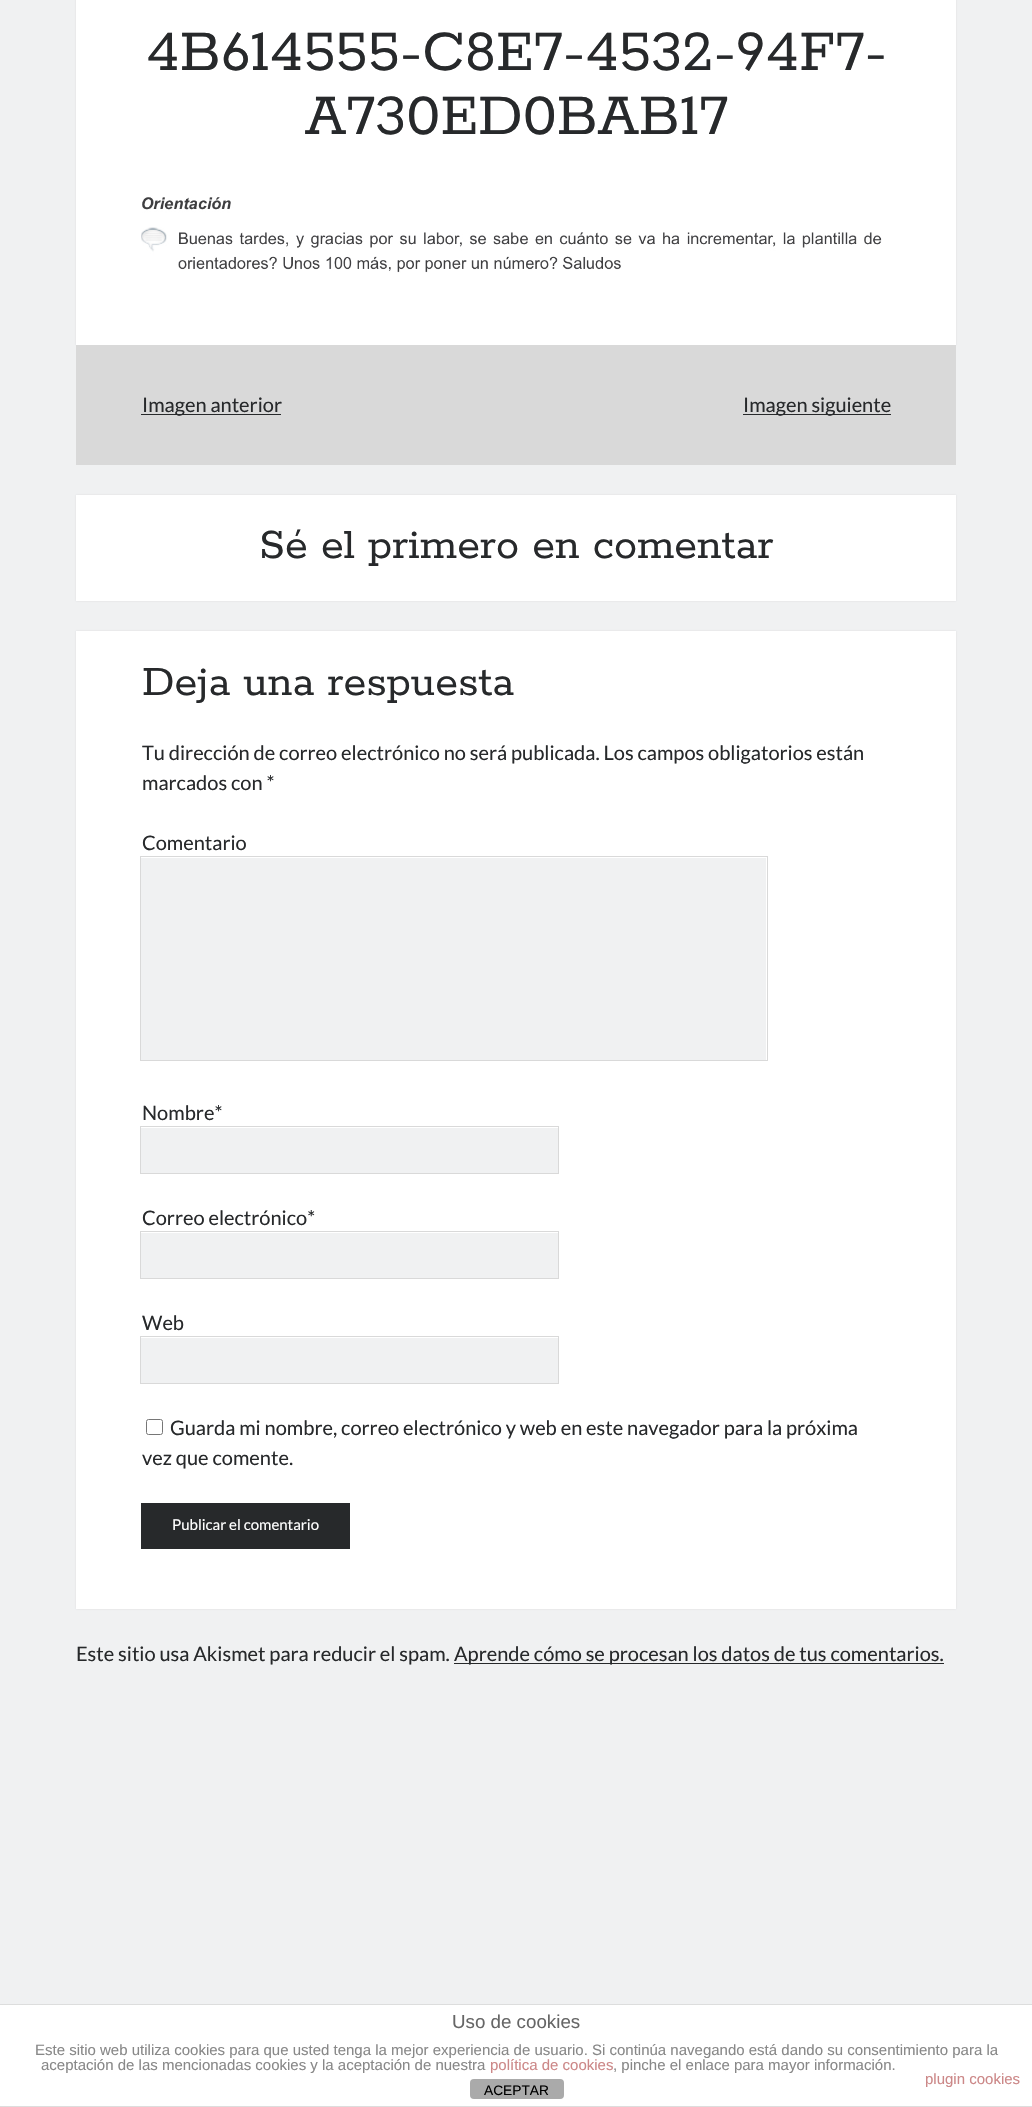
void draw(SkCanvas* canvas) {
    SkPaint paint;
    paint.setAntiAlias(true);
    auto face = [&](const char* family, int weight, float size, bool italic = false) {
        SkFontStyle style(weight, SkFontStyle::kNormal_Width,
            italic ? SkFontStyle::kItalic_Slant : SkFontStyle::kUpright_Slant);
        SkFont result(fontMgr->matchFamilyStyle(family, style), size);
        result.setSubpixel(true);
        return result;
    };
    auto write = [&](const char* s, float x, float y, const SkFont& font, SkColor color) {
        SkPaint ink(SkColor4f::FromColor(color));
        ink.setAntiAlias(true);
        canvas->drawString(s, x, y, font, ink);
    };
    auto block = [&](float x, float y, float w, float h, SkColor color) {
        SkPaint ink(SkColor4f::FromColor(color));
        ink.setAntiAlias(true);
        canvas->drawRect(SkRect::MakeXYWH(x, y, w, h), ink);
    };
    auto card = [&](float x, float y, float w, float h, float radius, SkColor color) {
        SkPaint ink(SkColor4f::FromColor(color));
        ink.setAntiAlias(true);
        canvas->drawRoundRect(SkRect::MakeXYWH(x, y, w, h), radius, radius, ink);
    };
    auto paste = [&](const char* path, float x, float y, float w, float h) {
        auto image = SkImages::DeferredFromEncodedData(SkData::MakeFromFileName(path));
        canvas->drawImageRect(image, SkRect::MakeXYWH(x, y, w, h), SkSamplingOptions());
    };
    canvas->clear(SkColorSetRGB(240, 241, 242));
    paint.setColor(SkColorSetARGB(26, 39, 43, 47));
    paint.setMaskFilter(SkMaskFilter::MakeBlur(kNormal_SkBlurStyle, 1));
    canvas->drawRect(SkRect::MakeXYWH(76, -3, 880, 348), paint);
    paint.setMaskFilter(nullptr);
    block(76, 0, 880, 345, SK_ColorWHITE);
    auto kFont1 = face("Rokkitt", 400, 63.75f);
    write("4B614555-C8E7-4532-94F7-", 146, 70, kFont1, SkColorSetRGB(39, 41, 43));
    write("A730ED0BAB17", 305, 134, kFont1, SkColorSetRGB(39, 41, 43));
    paste("pic1.png", 141, 197, 741, 76);
    block(76, 345, 880, 120, SkColorSetRGB(217, 217, 217));
    block(141, 414, 140, 1, SkColorSetRGB(39, 41, 43));
    auto kFont2 = face("Lato", 400, 20);
    write("Imagen anterior", 142, 412, kFont2, SkColorSetRGB(39, 41, 43));
    block(743, 414, 148, 1, SkColorSetRGB(39, 41, 43));
    write("Imagen siguiente", 743, 412, kFont2, SkColorSetRGB(39, 41, 43));
    paint.setMaskFilter(SkMaskFilter::MakeBlur(kNormal_SkBlurStyle, 1));
    canvas->drawRect(SkRect::MakeXYWH(76, 495, 880, 106), paint);
    paint.setMaskFilter(nullptr);
    block(76, 495, 880, 106, SK_ColorWHITE);
    auto kFont3 = face("Rokkitt", 400, 46.25f);
    write("Sé el primero en comentar", 259, 558, kFont3, SkColorSetRGB(39, 41, 43));
    paint.setMaskFilter(SkMaskFilter::MakeBlur(kNormal_SkBlurStyle, 1));
    canvas->drawRect(SkRect::MakeXYWH(76, 631, 880, 978), paint);
    paint.setMaskFilter(nullptr);
    block(76, 631, 880, 978, SK_ColorWHITE);
    write("Deja una respuesta", 142, 695, kFont3, SkColorSetRGB(39, 41, 43));
    write("Tu dirección de correo electrónico no será publicada. Los campos obligatorios están", 142, 760, kFont2, SkColorSetRGB(39, 41, 43));
    write("marcados con *", 142, 790, kFont2, SkColorSetRGB(39, 41, 43));
    write("Comentario", 142, 850, kFont2, SkColorSetRGB(39, 41, 43));
    block(141, 858, 625, 202, SkColorSetRGB(240, 241, 242));
    paint.setStyle(SkPaint::kStroke_Style);
    paint.setStrokeWidth(1);
    paint.setColor(SkColorSetRGB(217, 217, 217));
    canvas->drawRect(SkRect::MakeXYWH(140.5f, 856.5f, 627, 204), paint);
    write("Nombre*", 142, 1120, kFont2, SkColorSetRGB(39, 41, 43));
    block(141, 1128, 417, 45, SkColorSetRGB(240, 241, 242));
    canvas->drawRect(SkRect::MakeXYWH(140.5f, 1126.5f, 418, 47), paint);
    write("Correo electrónico*", 142, 1225, kFont2, SkColorSetRGB(39, 41, 43));
    block(141, 1233, 417, 45, SkColorSetRGB(240, 241, 242));
    canvas->drawRect(SkRect::MakeXYWH(140.5f, 1231.5f, 418, 47), paint);
    write("Web", 142, 1330, kFont2, SkColorSetRGB(39, 41, 43));
    block(141, 1338, 417, 45, SkColorSetRGB(240, 241, 242));
    canvas->drawRect(SkRect::MakeXYWH(140.5f, 1336.5f, 418, 47), paint);
    paint.setColor(SkColorSetRGB(118, 118, 118));
    canvas->drawRoundRect(SkRect::MakeXYWH(146.5f, 1419.5f, 16, 15), 2, 2, paint);
    write("Guarda mi nombre, correo electrónico y web en este navegador para la próxima", 170, 1435, kFont2, SkColorSetRGB(39, 41, 43));
    write("vez que comente.", 142, 1465, kFont2, SkColorSetRGB(39, 41, 43));
    block(141, 1503, 209, 46, SkColorSetRGB(39, 41, 43));
    auto kFont4 = face("Lato", 400, 15);
    write("Publicar el comentario", 172, 1530, kFont4, SK_ColorWHITE);
    write("Este sitio usa Akismet para reducir el spam.", 76, 1661, kFont2, SkColorSetRGB(39, 41, 43));
    block(454, 1663, 490, 1, SkColorSetRGB(39, 41, 43));
    write("Aprende cómo se procesan los datos de tus comentarios.", 454, 1661, kFont2, SkColorSetRGB(39, 41, 43));
    block(0, 2005, 1032, 101, SK_ColorWHITE);
    block(0, 2004, 1032, 1, SkColorSetRGB(221, 221, 221));
    block(0, 2106, 1032, 1, SkColorSetRGB(221, 221, 221));
    auto kFont5 = face("Liberation Sans", 400, 18.75f);
    write("Uso de cookies", 452, 2028, kFont5, SkColorSetRGB(102, 102, 102));
    auto kFont6 = face("Liberation Sans", 400, 15);
    write("Este sitio web utiliza cookies para que usted tenga la mejor experiencia de usuario. Si continúa navegando está dando su consentimiento para la", 35, 2055, kFont6, SkColorSetRGB(136, 136, 136));
    write("aceptación de las mencionadas cookies y la aceptación de nuestra", 41, 2070, kFont6, SkColorSetRGB(136, 136, 136));
    write("política de cookies", 490, 2070, kFont6, SkColorSetRGB(204, 136, 136));
    write(", pinche el enlace para mayor información.", 613, 2070, kFont6, SkColorSetRGB(136, 136, 136));
    write("plugin cookies", 925, 2084, kFont6, SkColorSetRGB(204, 136, 136));
    card(470, 2079, 94, 20, 4, SkColorSetRGB(170, 170, 170));
    auto kFont7 = face("Liberation Sans", 400, 13.75f);
    write("ACEPTAR", 484, 2095, kFont7, SK_ColorBLACK);
}
